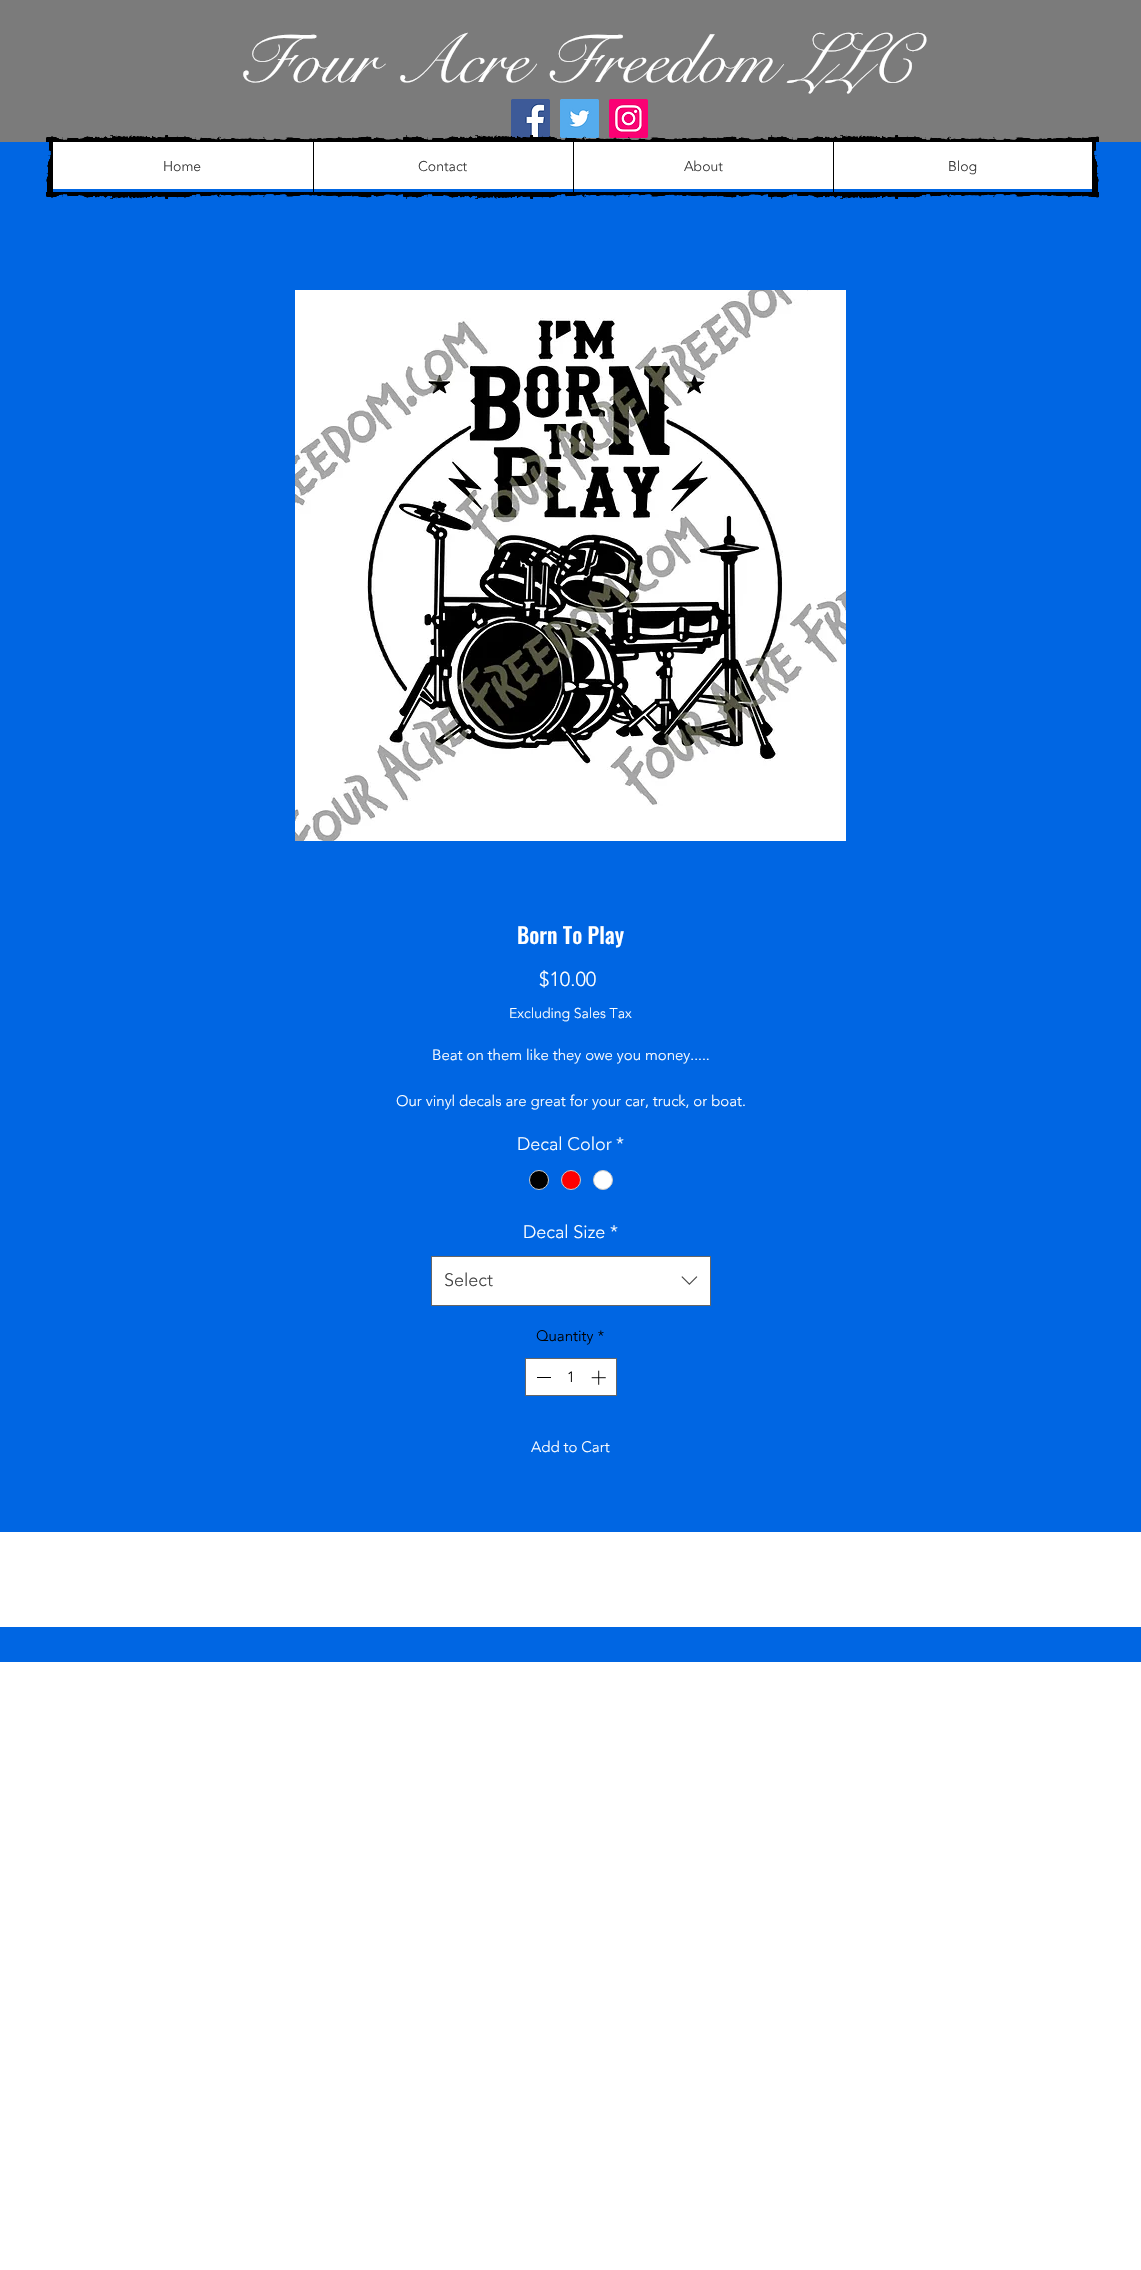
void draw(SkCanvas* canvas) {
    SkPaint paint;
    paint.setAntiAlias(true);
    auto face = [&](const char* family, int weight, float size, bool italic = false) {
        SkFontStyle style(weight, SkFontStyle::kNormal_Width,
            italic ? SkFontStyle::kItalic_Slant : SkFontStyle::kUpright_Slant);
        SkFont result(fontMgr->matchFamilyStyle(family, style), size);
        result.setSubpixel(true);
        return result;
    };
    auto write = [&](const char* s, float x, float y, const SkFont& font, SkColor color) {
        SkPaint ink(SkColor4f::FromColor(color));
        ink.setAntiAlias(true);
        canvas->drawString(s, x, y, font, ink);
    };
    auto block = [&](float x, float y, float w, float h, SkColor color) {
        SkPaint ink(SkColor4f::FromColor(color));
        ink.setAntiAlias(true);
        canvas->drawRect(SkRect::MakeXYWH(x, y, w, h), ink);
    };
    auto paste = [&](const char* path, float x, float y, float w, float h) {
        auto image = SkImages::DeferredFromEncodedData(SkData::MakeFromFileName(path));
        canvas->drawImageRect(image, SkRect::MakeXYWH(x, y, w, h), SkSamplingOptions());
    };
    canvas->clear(SK_ColorWHITE);
    block(0, 0, 1141, 142, SkColorSetRGB(123, 123, 123));
    auto kFont1 = face("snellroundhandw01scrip", 400, 69);
    write("Four Acre Freedom LLC", 239, 82, kFont1, SK_ColorWHITE);
    paste("pic1.png", 511, 99, 39, 39);
    paste("pic2.png", 560, 99, 39, 39);
    paste("pic3.png", 609, 99, 39, 39);
    block(0, 142, 1141, 1520, SkColorSetRGB(0, 102, 227));
    paste("pic4.png", 46, 135, 1053, 7);
    paste("pic5.png", 46, 142, 7, 50);
    block(53, 142, 1039, 47, SK_ColorWHITE);
    auto kFont2 = face("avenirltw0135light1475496", 300, 14);
    write("Home", 163, 171, kFont2, SkColorSetRGB(56, 56, 56));
    block(313, 142, 1, 50, SK_ColorBLACK);
    write("Contact", 418, 171, kFont2, SkColorSetRGB(56, 56, 56));
    block(573, 142, 1, 50, SK_ColorBLACK);
    write("About", 684, 171, kFont2, SkColorSetRGB(56, 56, 56));
    block(833, 142, 1, 50, SK_ColorBLACK);
    write("Blog", 948, 171, kFont2, SkColorSetRGB(56, 56, 56));
    paste("pic6.png", 1092, 142, 7, 50);
    paste("pic7.png", 46, 192, 1053, 7);
    paste("pic8.png", 295, 290, 551, 551);
    auto kFont3 = face("Oswald", 500, 22);
    write("Born To Play", 517, 944, kFont3, SK_ColorWHITE);
    auto kFont4 = face("avenirltw0135light1475496", 300, 20);
    write("$10.00", 539, 986, kFont4, SK_ColorWHITE);
    write("Excluding Sales Tax", 509, 1018, kFont2, SK_ColorWHITE);
    auto kFont5 = face("avenirltw0135light1475496", 300, 15);
    write("Beat on them like they owe you money.....", 432, 1060, kFont5, SK_ColorWHITE);
    write("Our vinyl decals are great for your car, truck, or boat.", 396, 1106, kFont5, SK_ColorWHITE);
    auto kFont6 = face("avenirltw0135light1475496", 300, 18);
    write("Decal Color", 517, 1150, kFont6, SK_ColorWHITE);
    write("*", 616, 1150, kFont6, SK_ColorWHITE);
    paint.setColor(SK_ColorBLACK);
    canvas->drawCircle(539, 1180, 9.5f, paint);
    paint.setStyle(SkPaint::kStroke_Style);
    paint.setStrokeWidth(1);
    paint.setColor(SkColorSetRGB(201, 201, 201));
    canvas->drawCircle(539, 1180, 9.5f, paint);
    paint.setStyle(SkPaint::kFill_Style);
    paint.setColor(SkColorSetRGB(255, 0, 0));
    canvas->drawCircle(571, 1180, 9.5f, paint);
    paint.setStyle(SkPaint::kStroke_Style);
    paint.setColor(SkColorSetRGB(201, 201, 201));
    canvas->drawCircle(571, 1180, 9.5f, paint);
    paint.setStyle(SkPaint::kFill_Style);
    paint.setColor(SK_ColorWHITE);
    canvas->drawCircle(603, 1180, 9.5f, paint);
    paint.setStyle(SkPaint::kStroke_Style);
    paint.setColor(SkColorSetRGB(201, 201, 201));
    canvas->drawCircle(603, 1180, 9.5f, paint);
    write("Decal Size", 523, 1238, kFont6, SK_ColorWHITE);
    write("*", 610, 1238, kFont6, SK_ColorWHITE);
    paint.setStyle(SkPaint::kFill_Style);
    paint.setColor(SK_ColorWHITE);
    canvas->drawRect(SkRect::MakeXYWH(431.5f, 1256.5f, 279, 49), paint);
    paint.setStyle(SkPaint::kStroke_Style);
    paint.setColor(SkColorSetRGB(102, 102, 102));
    canvas->drawRect(SkRect::MakeXYWH(431.5f, 1256.5f, 279, 49), paint);
    write("Select", 444, 1286, kFont6, SkColorSetRGB(68, 68, 68));
    paste("pic9.png", 681, 1276, 17, 9);
    write("Quantity *", 536, 1341, kFont5, SK_ColorBLACK);
    paint.setStyle(SkPaint::kFill_Style);
    paint.setColor(SK_ColorWHITE);
    canvas->drawRect(SkRect::MakeXYWH(525.5f, 1358.5f, 91, 37), paint);
    paint.setStyle(SkPaint::kStroke_Style);
    paint.setColor(SkColorSetRGB(102, 102, 102));
    canvas->drawRect(SkRect::MakeXYWH(525.5f, 1358.5f, 91, 37), paint);
    block(537, 1377, 14, 1, SK_ColorBLACK);
    write("1", 567, 1382, kFont5, SK_ColorBLACK);
    paste("pic10.png", 591, 1370, 15, 15);
    write("Add to Cart", 531, 1452, kFont5, SK_ColorWHITE);
    block(0, 1532, 1141, 95, SK_ColorWHITE);
}
